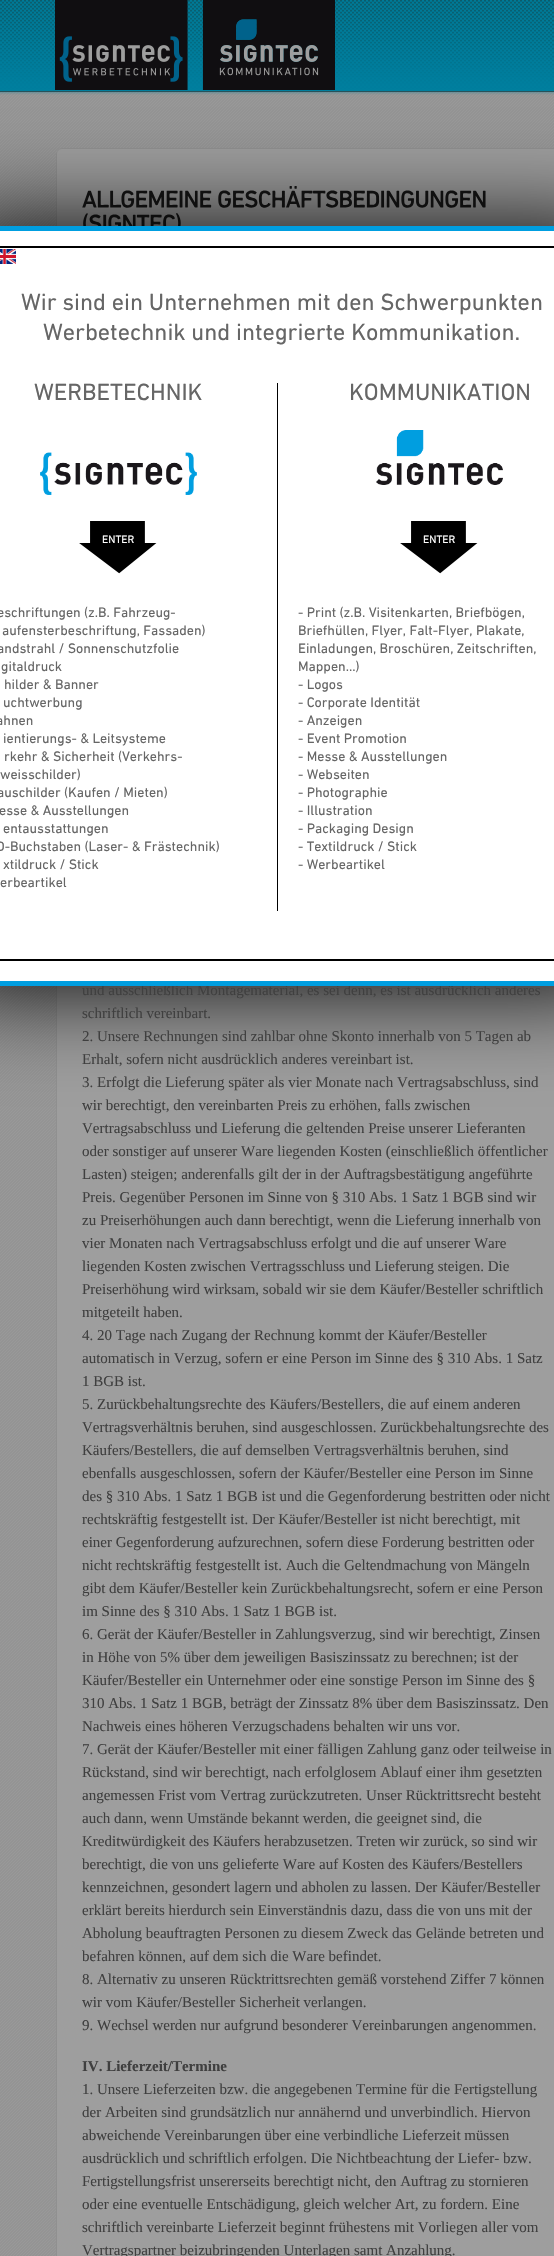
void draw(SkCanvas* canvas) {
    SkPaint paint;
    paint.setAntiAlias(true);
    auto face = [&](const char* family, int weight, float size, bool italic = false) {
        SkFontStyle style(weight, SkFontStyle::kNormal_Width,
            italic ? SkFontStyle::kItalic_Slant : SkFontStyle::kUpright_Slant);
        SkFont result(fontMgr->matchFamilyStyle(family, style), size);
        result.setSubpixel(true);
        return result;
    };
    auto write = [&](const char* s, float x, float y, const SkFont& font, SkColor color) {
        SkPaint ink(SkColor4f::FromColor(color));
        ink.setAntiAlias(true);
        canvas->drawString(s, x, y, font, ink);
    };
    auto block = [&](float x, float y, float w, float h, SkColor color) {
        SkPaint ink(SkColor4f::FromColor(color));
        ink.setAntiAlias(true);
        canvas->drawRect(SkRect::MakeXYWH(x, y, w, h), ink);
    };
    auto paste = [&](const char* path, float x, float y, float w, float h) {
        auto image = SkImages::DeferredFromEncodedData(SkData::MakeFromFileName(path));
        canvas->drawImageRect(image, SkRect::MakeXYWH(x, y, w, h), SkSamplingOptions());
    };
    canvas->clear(SK_ColorWHITE);
    paste("pic1.png", 0, 92, 554, 2164);
    paste("pic2.png", 0, 0, 554, 95);
    paste("pic3.png", 55, 0, 280, 90);
    paint.setColor(SkColorSetRGB(158, 158, 158));
    canvas->drawPath(SkPathBuilder().moveTo(62, 148).lineTo(554, 148).lineTo(554, 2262).lineTo(62, 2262).cubicTo(58.5f, 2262, 56, 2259.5f, 56, 2256).lineTo(56, 154).cubicTo(56, 150.5f, 58.5f, 148, 62, 148).close().detach(), paint);
    paint.setStyle(SkPaint::kStroke_Style);
    paint.setStrokeWidth(1);
    paint.setColor(SkColorSetRGB(144, 144, 144));
    canvas->drawRoundRect(SkRect::MakeXYWH(56.5f, 148.5f, 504, 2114), 5.5f, 5.5f, paint);
    paste("pic8.png", 82, 190, 130, 18);
    paste("pic9.png", 218, 186, 268, 22);
    paste("pic10.png", 83, 213, 98, 13);
    paint.setStyle(SkPaint::kFill_Style);
    paint.setColor(SK_ColorBLACK);
    paint.setMaskFilter(SkMaskFilter::MakeBlur(kNormal_SkBlurStyle, 50));
    canvas->drawRoundRect(SkRect::MakeXYWH(-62, 227, 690, 760), 5, 5, paint);
    paint.setMaskFilter(nullptr);
    auto kFont1 = face("Liberation Serif", 400, 15);
    write("und ausschließlich Montagematerial, es sei denn, es ist ausdrücklich anderes", 82, 995, kFont1, SkColorSetRGB(63, 63, 63));
    paint.setColor(SK_ColorWHITE);
    canvas->drawRect(SkRect::MakeXYWH(-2.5f, 228.5f, 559, 755), paint);
    paint.setStyle(SkPaint::kStroke_Style);
    paint.setStrokeWidth(5);
    paint.setColor(SkColorSetRGB(0, 158, 224));
    canvas->drawRect(SkRect::MakeXYWH(-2.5f, 228.5f, 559, 755), paint);
    paint.setStrokeWidth(2);
    paint.setColor(SK_ColorBLACK);
    canvas->drawRect(SkRect::MakeXYWH(-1, 247, 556, 713), paint);
    paste("pic4.png", 0, 249, 16, 15);
    auto kFont2 = face("DIN Next", 400, 24);
    write("Wir sind ein Unternehmen mit den Schwerpunkten", 21, 310, kFont2, SkColorSetRGB(102, 102, 102));
    write("Werbetechnik und integrierte Kommunikation.", 43, 340, kFont2, SkColorSetRGB(102, 102, 102));
    block(277, 383, 1, 528, SK_ColorBLACK);
    write("WERBETECHNIK", 34, 400, kFont2, SkColorSetRGB(102, 102, 102));
    paste("pic5.png", 40, 452, 157, 43);
    paste("pic6.png", 79, 521, 78, 53);
    auto kFont3 = face("DIN Next", 400, 11);
    write("ENTER", 102, 543, kFont3, SK_ColorWHITE);
    auto kFont4 = face("DIN Next", 400, 14);
    write("eschriftungen (z.B. Fahrzeug-", -3, 617, kFont4, SkColorSetRGB(102, 102, 102));
    write("aufensterbeschriftung, Fassaden)", 2, 635, kFont4, SkColorSetRGB(102, 102, 102));
    write("andstrahl / Sonnenschutzfolie", -3, 653, kFont4, SkColorSetRGB(102, 102, 102));
    write("gitaldruck", 1, 671, kFont4, SkColorSetRGB(102, 102, 102));
    write("hilder & Banner", 4, 689, kFont4, SkColorSetRGB(102, 102, 102));
    write("uchtwerbung", 3, 707, kFont4, SkColorSetRGB(102, 102, 102));
    write("ahnen", -4, 725, kFont4, SkColorSetRGB(102, 102, 102));
    write("ientierungs- & Leitsysteme", 3, 743, kFont4, SkColorSetRGB(102, 102, 102));
    write("rkehr & Sicherheit (Verkehrs-", 4, 761, kFont4, SkColorSetRGB(102, 102, 102));
    write("weisschilder)", 0, 779, kFont4, SkColorSetRGB(102, 102, 102));
    write("auschilder (Kaufen / Mieten)", -3, 797, kFont4, SkColorSetRGB(102, 102, 102));
    write("esse & Ausstellungen", -1, 815, kFont4, SkColorSetRGB(102, 102, 102));
    write("entausstattungen", 3, 833, kFont4, SkColorSetRGB(102, 102, 102));
    write("D-Buchstaben (Laser- & Frästechnik)", -4, 851, kFont4, SkColorSetRGB(102, 102, 102));
    write("xtildruck / Stick", 3, 869, kFont4, SkColorSetRGB(102, 102, 102));
    write("erbeartikel", 0, 887, kFont4, SkColorSetRGB(102, 102, 102));
    write("KOMMUNIKATION", 349, 400, kFont2, SkColorSetRGB(102, 102, 102));
    paste("pic7.png", 376, 430, 127, 55);
    paste("pic6.png", 400, 521, 78, 53);
    write("ENTER", 423, 543, kFont3, SK_ColorWHITE);
    write("- Print (z.B. Visitenkarten, Briefbögen,", 298, 617, kFont4, SkColorSetRGB(102, 102, 102));
    write("Briefhüllen, Flyer, Falt-Flyer, Plakate,", 298, 635, kFont4, SkColorSetRGB(102, 102, 102));
    write("Einladungen, Broschüren, Zeitschriften,", 298, 653, kFont4, SkColorSetRGB(102, 102, 102));
    write("Mappen...)", 298, 671, kFont4, SkColorSetRGB(102, 102, 102));
    write("- Logos", 298, 689, kFont4, SkColorSetRGB(102, 102, 102));
    write("- Corporate Identität", 298, 707, kFont4, SkColorSetRGB(102, 102, 102));
    write("- Anzeigen", 298, 725, kFont4, SkColorSetRGB(102, 102, 102));
    write("- Event Promotion", 298, 743, kFont4, SkColorSetRGB(102, 102, 102));
    write("- Messe & Ausstellungen", 298, 761, kFont4, SkColorSetRGB(102, 102, 102));
    write("- Webseiten", 298, 779, kFont4, SkColorSetRGB(102, 102, 102));
    write("- Photographie", 298, 797, kFont4, SkColorSetRGB(102, 102, 102));
    write("- Illustration", 298, 815, kFont4, SkColorSetRGB(102, 102, 102));
    write("- Packaging Design", 298, 833, kFont4, SkColorSetRGB(102, 102, 102));
    write("- Textildruck / Stick", 298, 851, kFont4, SkColorSetRGB(102, 102, 102));
    write("- Werbeartikel", 298, 869, kFont4, SkColorSetRGB(102, 102, 102));
    write("schriftlich vereinbart.", 82, 1018, kFont1, SkColorSetRGB(63, 63, 63));
    write("2. Unsere Rechnungen sind zahlbar ohne Skonto innerhalb von 5 Tagen ab", 82, 1041, kFont1, SkColorSetRGB(63, 63, 63));
    write("Erhalt, sofern nicht ausdrücklich anderes vereinbart ist.", 82, 1064, kFont1, SkColorSetRGB(63, 63, 63));
    write("3. Erfolgt die Lieferung später als vier Monate nach Vertragsabschluss, sind", 82, 1087, kFont1, SkColorSetRGB(63, 63, 63));
    write("wir berechtigt, den vereinbarten Preis zu erhöhen, falls zwischen", 82, 1110, kFont1, SkColorSetRGB(63, 63, 63));
    write("Vertragsabschluss und Lieferung die geltenden Preise unserer Lieferanten", 82, 1133, kFont1, SkColorSetRGB(63, 63, 63));
    write("oder sonstiger auf unserer Ware liegenden Kosten (einschließlich öffentlicher", 82, 1156, kFont1, SkColorSetRGB(63, 63, 63));
    write("Lasten) steigen; anderenfalls gilt der in der Auftragsbestätigung angeführte", 82, 1179, kFont1, SkColorSetRGB(63, 63, 63));
    write("Preis. Gegenüber Personen im Sinne von § 310 Abs. 1 Satz 1 BGB sind wir", 82, 1202, kFont1, SkColorSetRGB(63, 63, 63));
    write("zu Preiserhöhungen auch dann berechtigt, wenn die Lieferung innerhalb von", 82, 1225, kFont1, SkColorSetRGB(63, 63, 63));
    write("vier Monaten nach Vertragsabschluss erfolgt und die auf unserer Ware", 82, 1248, kFont1, SkColorSetRGB(63, 63, 63));
    write("liegenden Kosten zwischen Vertragsschluss und Lieferung steigen. Die", 82, 1271, kFont1, SkColorSetRGB(63, 63, 63));
    write("Preiserhöhung wird wirksam, sobald wir sie dem Käufer/Besteller schriftlich", 82, 1294, kFont1, SkColorSetRGB(63, 63, 63));
    write("mitgeteilt haben.", 82, 1317, kFont1, SkColorSetRGB(63, 63, 63));
    write("4. 20 Tage nach Zugang der Rechnung kommt der Käufer/Besteller", 82, 1340, kFont1, SkColorSetRGB(63, 63, 63));
    write("automatisch in Verzug, sofern er eine Person im Sinne des § 310 Abs. 1 Satz", 82, 1363, kFont1, SkColorSetRGB(63, 63, 63));
    write("1 BGB ist.", 82, 1386, kFont1, SkColorSetRGB(63, 63, 63));
    write("5. Zurückbehaltungsrechte des Käufers/Bestellers, die auf einem anderen", 82, 1409, kFont1, SkColorSetRGB(63, 63, 63));
    write("Vertragsverhältnis beruhen, sind ausgeschlossen. Zurückbehaltungsrechte des", 82, 1432, kFont1, SkColorSetRGB(63, 63, 63));
    write("Käufers/Bestellers, die auf demselben Vertragsverhältnis beruhen, sind", 82, 1455, kFont1, SkColorSetRGB(63, 63, 63));
    write("ebenfalls ausgeschlossen, sofern der Käufer/Besteller eine Person im Sinne", 82, 1478, kFont1, SkColorSetRGB(63, 63, 63));
    write("des § 310 Abs. 1 Satz 1 BGB ist und die Gegenforderung bestritten oder nicht", 82, 1501, kFont1, SkColorSetRGB(63, 63, 63));
    write("rechtskräftig festgestellt ist. Der Käufer/Besteller ist nicht berechtigt, mit", 82, 1524, kFont1, SkColorSetRGB(63, 63, 63));
    write("einer Gegenforderung aufzurechnen, sofern diese Forderung bestritten oder", 82, 1547, kFont1, SkColorSetRGB(63, 63, 63));
    write("nicht rechtskräftig festgestellt ist. Auch die Geltendmachung von Mängeln", 82, 1570, kFont1, SkColorSetRGB(63, 63, 63));
    write("gibt dem Käufer/Besteller kein Zurückbehaltungsrecht, sofern er eine Person", 82, 1593, kFont1, SkColorSetRGB(63, 63, 63));
    write("im Sinne des § 310 Abs. 1 Satz 1 BGB ist.", 82, 1616, kFont1, SkColorSetRGB(63, 63, 63));
    write("6. Gerät der Käufer/Besteller in Zahlungsverzug, sind wir berechtigt, Zinsen", 82, 1639, kFont1, SkColorSetRGB(63, 63, 63));
    write("in Höhe von 5% über dem jeweiligen Basiszinssatz zu berechnen; ist der", 82, 1662, kFont1, SkColorSetRGB(63, 63, 63));
    write("Käufer/Besteller ein Unternehmer oder eine sonstige Person im Sinne des §", 82, 1685, kFont1, SkColorSetRGB(63, 63, 63));
    write("310 Abs. 1 Satz 1 BGB, beträgt der Zinssatz 8% über dem Basiszinssatz. Den", 82, 1708, kFont1, SkColorSetRGB(63, 63, 63));
    write("Nachweis eines höheren Verzugschadens behalten wir uns vor.", 82, 1731, kFont1, SkColorSetRGB(63, 63, 63));
    write("7. Gerät der Käufer/Besteller mit einer fälligen Zahlung ganz oder teilweise in", 82, 1754, kFont1, SkColorSetRGB(63, 63, 63));
    write("Rückstand, sind wir berechtigt, nach erfolglosem Ablauf einer ihm gesetzten", 82, 1777, kFont1, SkColorSetRGB(63, 63, 63));
    write("angemessen Frist vom Vertrag zurückzutreten. Unser Rücktrittsrecht besteht", 82, 1800, kFont1, SkColorSetRGB(63, 63, 63));
    write("auch dann, wenn Umstände bekannt werden, die geeignet sind, die", 82, 1823, kFont1, SkColorSetRGB(63, 63, 63));
    write("Kreditwürdigkeit des Käufers herabzusetzen. Treten wir zurück, so sind wir", 82, 1846, kFont1, SkColorSetRGB(63, 63, 63));
    write("berechtigt, die von uns gelieferte Ware auf Kosten des Käufers/Bestellers", 82, 1869, kFont1, SkColorSetRGB(63, 63, 63));
    write("kennzeichnen, gesondert lagern und abholen zu lassen. Der Käufer/Besteller", 82, 1892, kFont1, SkColorSetRGB(63, 63, 63));
    write("erklärt bereits hierdurch sein Einverständnis dazu, dass die von uns mit der", 82, 1915, kFont1, SkColorSetRGB(63, 63, 63));
    write("Abholung beauftragten Personen zu diesem Zweck das Gelände betreten und", 82, 1938, kFont1, SkColorSetRGB(63, 63, 63));
    write("befahren können, auf dem sich die Ware befindet.", 82, 1961, kFont1, SkColorSetRGB(63, 63, 63));
    write("8. Alternativ zu unseren Rücktrittsrechten gemäß vorstehend Ziffer 7 können", 82, 1984, kFont1, SkColorSetRGB(63, 63, 63));
    write("wir vom Käufer/Besteller Sicherheit verlangen.", 82, 2007, kFont1, SkColorSetRGB(63, 63, 63));
    write("9. Wechsel werden nur aufgrund besonderer Vereinbarungen angenommen.", 82, 2030, kFont1, SkColorSetRGB(63, 63, 63));
    auto kFont5 = face("Liberation Serif", 700, 15);
    write("IV. Lieferzeit/Termine", 82, 2071, kFont5, SkColorSetRGB(63, 63, 63));
    write("1. Unsere Lieferzeiten bzw. die angegebenen Termine für die Fertigstellung", 82, 2094, kFont1, SkColorSetRGB(63, 63, 63));
    write("der Arbeiten sind grundsätzlich nur annähernd und unverbindlich. Hiervon", 82, 2117, kFont1, SkColorSetRGB(63, 63, 63));
    write("abweichende Vereinbarungen über eine verbindliche Lieferzeit müssen", 82, 2140, kFont1, SkColorSetRGB(63, 63, 63));
    write("ausdrücklich und schriftlich erfolgen. Die Nichtbeachtung der Liefer- bzw.", 82, 2163, kFont1, SkColorSetRGB(63, 63, 63));
    write("Fertigstellungsfrist unsererseits berechtigt nicht, den Auftrag zu stornieren", 82, 2186, kFont1, SkColorSetRGB(63, 63, 63));
    write("oder eine eventuelle Entschädigung, gleich welcher Art, zu fordern. Eine", 82, 2209, kFont1, SkColorSetRGB(63, 63, 63));
    write("schriftlich vereinbarte Lieferzeit beginnt frühestens mit Vorliegen aller vom", 82, 2232, kFont1, SkColorSetRGB(63, 63, 63));
    write("Vertragspartner beizubringenden Unterlagen samt Anzahlung.", 82, 2255, kFont1, SkColorSetRGB(63, 63, 63));
}
